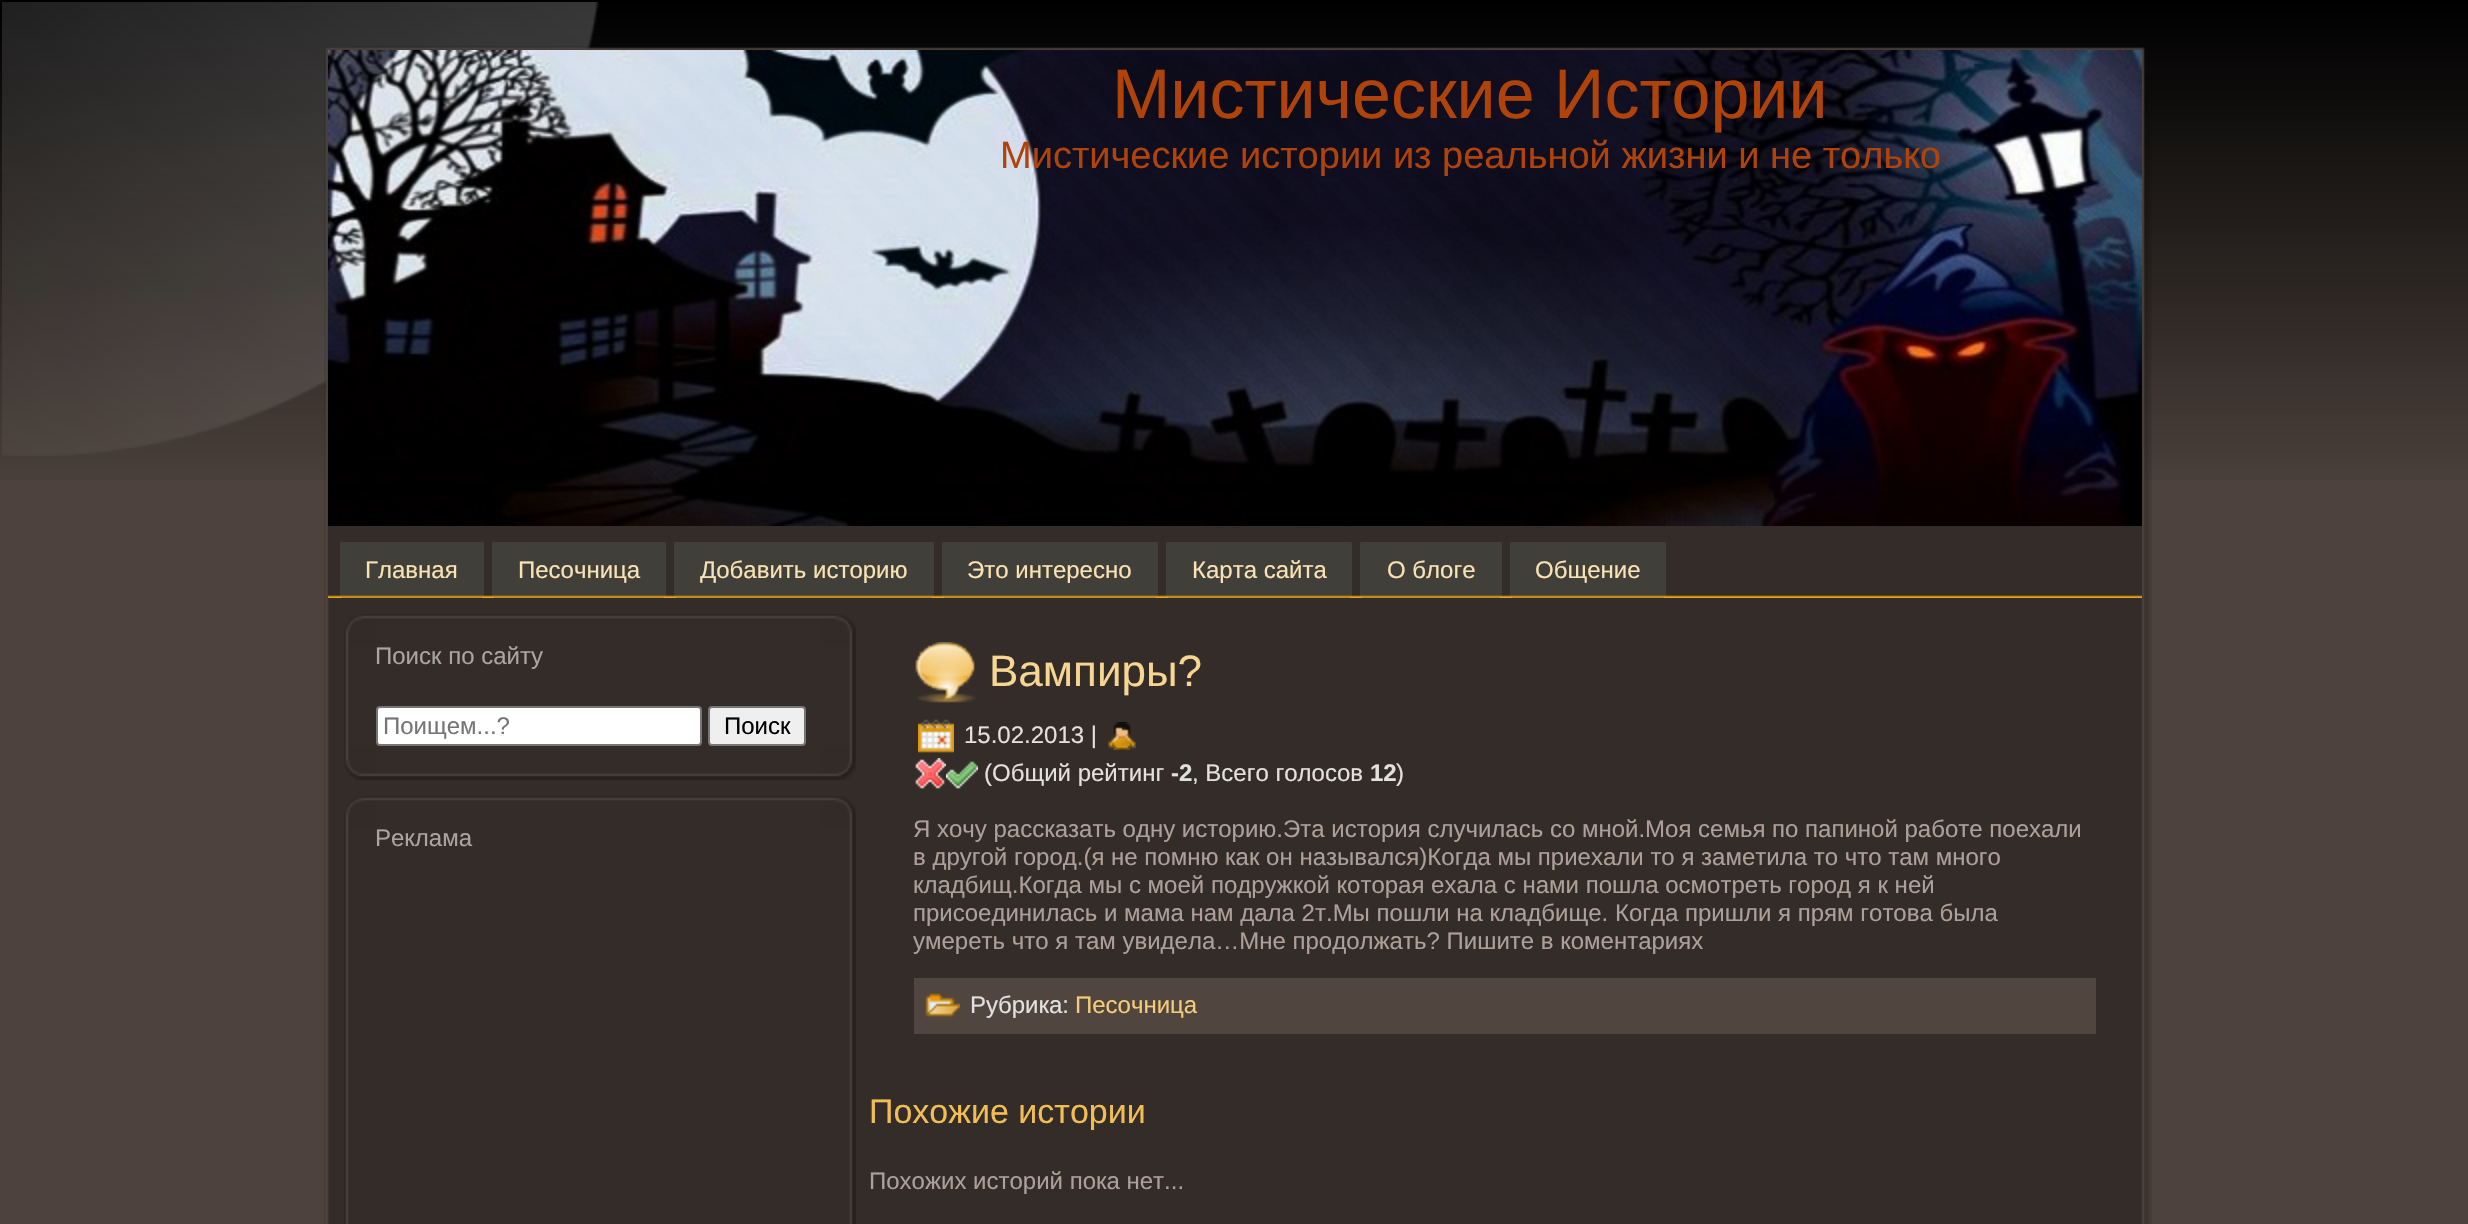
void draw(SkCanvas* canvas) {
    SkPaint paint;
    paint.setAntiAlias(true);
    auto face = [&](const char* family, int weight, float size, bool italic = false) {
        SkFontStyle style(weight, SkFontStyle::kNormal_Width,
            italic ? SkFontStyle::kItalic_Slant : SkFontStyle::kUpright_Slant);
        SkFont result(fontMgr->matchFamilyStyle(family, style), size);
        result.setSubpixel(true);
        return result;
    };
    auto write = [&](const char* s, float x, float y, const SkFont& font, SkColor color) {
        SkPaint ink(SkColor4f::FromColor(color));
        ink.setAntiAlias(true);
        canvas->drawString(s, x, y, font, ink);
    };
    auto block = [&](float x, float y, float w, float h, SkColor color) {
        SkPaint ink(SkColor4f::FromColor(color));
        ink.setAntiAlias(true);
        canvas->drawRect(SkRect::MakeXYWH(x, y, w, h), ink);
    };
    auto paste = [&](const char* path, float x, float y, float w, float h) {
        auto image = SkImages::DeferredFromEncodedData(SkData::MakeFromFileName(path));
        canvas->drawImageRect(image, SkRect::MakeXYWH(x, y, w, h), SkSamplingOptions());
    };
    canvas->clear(SkColorSetRGB(77, 66, 61));
    paste("pic1.png", 0, 0, 2468, 480);
    paste("pic2.png", 2, 2, 597, 454);
    paste("pic3.png", 324, 47, 28, 27);
    paste("pic4.png", 352, 46, 1766, 4);
    paste("pic5.png", 2118, 47, 27, 27);
    paste("pic6.png", 324, 74, 28, 1150);
    paste("pic33.png", 2118, 74, 34, 1150);
    paste("pic7.png", 328, 50, 1814, 476);
    auto kFont1 = face("Liberation Sans", 400, 70);
    write("Мистические Истории", 1112, 118, kFont1, SkColorSetRGB(175, 67, 10));
    auto kFont2 = face("Liberation Sans", 400, 38);
    write("Мистические истории из реальной жизни и не только", 1000, 168, kFont2, SkColorSetRGB(175, 67, 10));
    paste("pic8.png", 328, 526, 1814, 72);
    paste("pic9.png", 340, 542, 2, 55);
    paste("pic9.png", 482, 542, 2, 55);
    paste("pic10.png", 342, 542, 140, 56);
    auto kFont3 = face("Liberation Sans", 400, 24);
    write("Главная", 365, 578, kFont3, SkColorSetRGB(249, 226, 179));
    paste("pic9.png", 492, 542, 2, 55);
    paste("pic9.png", 664, 542, 2, 55);
    paste("pic11.png", 494, 542, 170, 56);
    write("Песочница", 518, 578, kFont3, SkColorSetRGB(249, 226, 179));
    paste("pic9.png", 674, 542, 2, 55);
    paste("pic9.png", 932, 542, 2, 55);
    paste("pic12.png", 676, 542, 256, 56);
    write("Добавить историю", 700, 578, kFont3, SkColorSetRGB(249, 226, 179));
    paste("pic9.png", 942, 542, 2, 55);
    paste("pic9.png", 1156, 542, 2, 55);
    paste("pic13.png", 944, 542, 212, 56);
    write("Это интересно", 967, 578, kFont3, SkColorSetRGB(249, 226, 179));
    paste("pic9.png", 1166, 542, 2, 55);
    paste("pic9.png", 1350, 542, 2, 55);
    paste("pic14.png", 1168, 542, 182, 56);
    write("Карта сайта", 1192, 578, kFont3, SkColorSetRGB(249, 226, 179));
    paste("pic9.png", 1360, 542, 2, 55);
    paste("pic9.png", 1500, 542, 2, 55);
    paste("pic15.png", 1362, 542, 138, 56);
    write("О блоге", 1387, 578, kFont3, SkColorSetRGB(249, 226, 179));
    paste("pic9.png", 1510, 542, 2, 55);
    paste("pic9.png", 1664, 542, 2, 55);
    paste("pic16.png", 1512, 542, 152, 56);
    write("Общение", 1535, 578, kFont3, SkColorSetRGB(249, 226, 179));
    block(352, 598, 1766, 626, SkColorSetRGB(51, 44, 40));
    paste("pic17.png", 344, 614, 32, 32);
    paste("pic18.png", 376, 614, 446, 5);
    paste("pic19.png", 822, 614, 34, 32);
    paste("pic20.png", 344, 646, 5, 100);
    write("Поиск по сайту", 375, 664, kFont3, SkColorSetRGB(168, 166, 159));
    paint.setColor(SK_ColorWHITE);
    canvas->drawRoundRect(SkRect::MakeXYWH(377, 707, 324, 38), 3, 3, paint);
    paint.setStyle(SkPaint::kStroke_Style);
    paint.setStrokeWidth(2);
    paint.setColor(SkColorSetRGB(118, 118, 118));
    canvas->drawRoundRect(SkRect::MakeXYWH(377, 707, 324, 38), 3, 3, paint);
    write("Поищем...?", 383, 734, kFont3, SkColorSetRGB(117, 117, 117));
    paint.setStyle(SkPaint::kFill_Style);
    paint.setColor(SkColorSetRGB(239, 239, 239));
    canvas->drawRoundRect(SkRect::MakeXYWH(709, 707, 96, 38), 3, 3, paint);
    paint.setStyle(SkPaint::kStroke_Style);
    paint.setColor(SkColorSetRGB(118, 118, 118));
    canvas->drawRoundRect(SkRect::MakeXYWH(709, 707, 96, 38), 3, 3, paint);
    write("Поиск", 724, 734, kFont3, SK_ColorBLACK);
    paste("pic21.png", 849, 646, 7, 100);
    paste("pic22.png", 344, 746, 32, 34);
    paste("pic23.png", 376, 773, 446, 7);
    paste("pic24.png", 822, 746, 34, 34);
    paste("pic17.png", 344, 796, 32, 32);
    paste("pic18.png", 376, 796, 446, 5);
    paste("pic19.png", 822, 796, 34, 32);
    paste("pic25.png", 344, 828, 5, 396);
    write("Реклама", 375, 846, kFont3, SkColorSetRGB(168, 166, 159));
    paste("pic26.png", 849, 828, 7, 396);
    paste("pic27.png", 915, 642, 61, 61);
    auto kFont4 = face("Liberation Sans", 400, 44);
    write("Вампиры?", 989, 686, kFont4, SkColorSetRGB(247, 213, 146));
    paste("pic28.png", 918, 719, 36, 34);
    write("15.02.2013 |", 964, 743, kFont3, SkColorSetRGB(226, 225, 223));
    paste("pic29.png", 1108, 722, 28, 28);
    paste("pic30.png", 915, 758, 31, 31);
    paste("pic31.png", 946, 761, 32, 28);
    write("(Общий рейтинг", 984, 781, kFont3, SkColorSetRGB(226, 225, 223));
    auto kFont5 = face("Liberation Sans", 700, 24);
    write("-2", 1171, 781, kFont5, SkColorSetRGB(226, 225, 223));
    write(", Всего голосов", 1192, 781, kFont3, SkColorSetRGB(226, 225, 223));
    write("12", 1370, 781, kFont5, SkColorSetRGB(226, 225, 223));
    write(")", 1396, 781, kFont3, SkColorSetRGB(226, 225, 223));
    write("Я хочу рассказать одну историю.Эта история случилась со мной.Моя семья по папиной работе поехали", 913, 837, kFont3, SkColorSetRGB(174, 160, 152));
    write("в другой город.(я не помню как он назывался)Когда мы приехали то я заметила то что там много", 913, 865, kFont3, SkColorSetRGB(174, 160, 152));
    write("кладбищ.Когда мы с моей подружкой которая ехала с нами пошла осмотреть город я к ней", 913, 893, kFont3, SkColorSetRGB(174, 160, 152));
    write("присоединилась и мама нам дала 2т.Мы пошли на кладбище. Когда пришли я прям готова была", 913, 921, kFont3, SkColorSetRGB(174, 160, 152));
    write("умереть что я там увидела…Мне продолжать? Пишите в коментариях", 913, 949, kFont3, SkColorSetRGB(174, 160, 152));
    block(914, 978, 1182, 56, SkColorSetRGB(80, 69, 63));
    paste("pic32.png", 925, 993, 35, 24);
    write("Рубрика:", 970, 1013, kFont3, SkColorSetRGB(226, 225, 223));
    write("Песочница", 1075, 1013, kFont3, SkColorSetRGB(245, 204, 122));
    auto kFont6 = face("Liberation Sans", 400, 34);
    write("Похожие истории", 869, 1123, kFont6, SkColorSetRGB(242, 190, 84));
    write("Похожих историй пока нет...", 869, 1189, kFont3, SkColorSetRGB(174, 160, 152));
}
